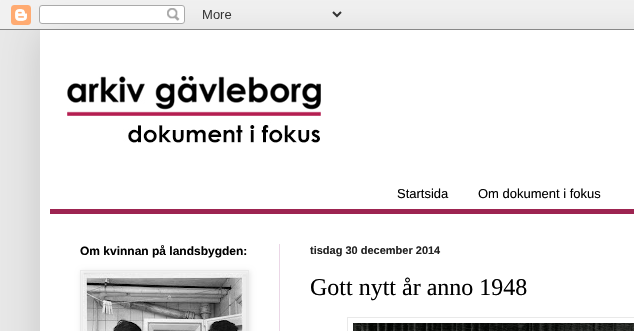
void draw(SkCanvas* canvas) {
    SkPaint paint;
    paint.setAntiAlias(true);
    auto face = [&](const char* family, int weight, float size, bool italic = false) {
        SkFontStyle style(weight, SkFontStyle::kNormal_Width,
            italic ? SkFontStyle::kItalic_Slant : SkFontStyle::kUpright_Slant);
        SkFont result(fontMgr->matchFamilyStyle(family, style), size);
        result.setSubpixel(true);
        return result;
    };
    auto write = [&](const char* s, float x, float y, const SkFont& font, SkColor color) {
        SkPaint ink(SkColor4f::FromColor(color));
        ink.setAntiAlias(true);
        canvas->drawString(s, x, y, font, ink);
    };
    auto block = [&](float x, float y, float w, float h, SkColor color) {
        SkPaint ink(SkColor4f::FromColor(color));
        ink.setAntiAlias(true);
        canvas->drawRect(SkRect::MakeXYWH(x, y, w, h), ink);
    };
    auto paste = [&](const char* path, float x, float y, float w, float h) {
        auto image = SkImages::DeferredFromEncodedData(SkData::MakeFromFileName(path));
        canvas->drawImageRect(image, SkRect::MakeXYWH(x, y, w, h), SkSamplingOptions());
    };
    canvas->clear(SkColorSetRGB(233, 233, 233));
    paint.setColor(SkColorSetARGB(38, 0, 0, 0));
    paint.setMaskFilter(SkMaskFilter::MakeBlur(kNormal_SkBlurStyle, 20));
    canvas->drawRect(SkRect::MakeXYWH(40, 30, 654, 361), paint);
    paint.setMaskFilter(nullptr);
    paste("pic1.png", 0, 0, 634, 30);
    block(40, 30, 594, 301, SK_ColorWHITE);
    paste("pic2.png", 67, 76, 254, 67);
    block(50, 209, 584, 5, SkColorSetRGB(157, 36, 81));
    auto kFont1 = face("Liberation Sans", 400, 13);
    write("Startsida", 397, 198, kFont1, SK_ColorBLACK);
    write("Om dokument i fokus", 478, 198, kFont1, SK_ColorBLACK);
    block(279, 244, 1, 87, SkColorSetRGB(235, 215, 231));
    auto kFont2 = face("Liberation Sans", 700, 12);
    write("Om kvinnan på landsbygden:", 80, 255, kFont2, SK_ColorBLACK);
    paint.setColor(SkColorSetARGB(26, 0, 0, 0));
    paint.setMaskFilter(SkMaskFilter::MakeBlur(kNormal_SkBlurStyle, 2.5f));
    canvas->drawRect(SkRect::MakeXYWH(81, 271, 169, 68), paint);
    paint.setMaskFilter(nullptr);
    paint.setStyle(SkPaint::kStroke_Style);
    paint.setStrokeWidth(1);
    paint.setColor(SkColorSetRGB(233, 233, 233));
    canvas->drawRect(SkRect::MakeXYWH(80.5f, 270.5f, 168, 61), paint);
    paste("pic3.png", 83, 273, 163, 58);
    auto kFont3 = face("Liberation Sans", 700, 11);
    write("tisdag 30 december 2014", 310, 254, kFont3, SkColorSetRGB(34, 34, 34));
    auto kFont4 = face("Liberation Serif", 400, 24);
    write("Gott nytt år anno 1948", 310, 295, kFont4, SK_ColorBLACK);
    canvas->drawRect(SkRect::MakeXYWH(347.5f, 317.5f, 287, 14), paint);
    paste("pic4.png", 353, 323, 281, 8);
}
